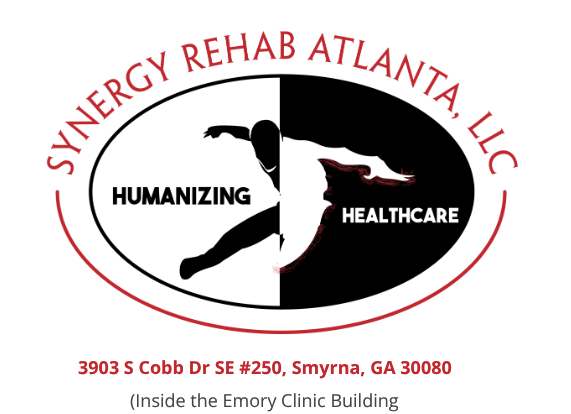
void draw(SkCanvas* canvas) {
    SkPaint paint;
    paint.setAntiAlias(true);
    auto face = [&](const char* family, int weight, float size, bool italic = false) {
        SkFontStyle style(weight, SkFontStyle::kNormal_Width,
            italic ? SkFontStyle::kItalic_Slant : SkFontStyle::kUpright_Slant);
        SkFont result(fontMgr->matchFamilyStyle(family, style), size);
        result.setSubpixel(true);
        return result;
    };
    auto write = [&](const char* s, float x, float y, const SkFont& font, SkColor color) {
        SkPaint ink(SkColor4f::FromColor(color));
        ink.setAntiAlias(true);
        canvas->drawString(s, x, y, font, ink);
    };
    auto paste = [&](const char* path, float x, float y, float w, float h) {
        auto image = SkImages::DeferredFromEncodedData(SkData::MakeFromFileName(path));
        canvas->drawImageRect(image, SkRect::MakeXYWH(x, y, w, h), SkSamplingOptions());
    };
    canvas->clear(SK_ColorWHITE);
    paste("pic1.png", 46, 31, 472, 304);
    auto kFont1 = face("Open Sans", 700, 18);
    write("3903 S Cobb Dr SE #250, Smyrna, GA 30080", 78, 374, kFont1, SkColorSetRGB(193, 39, 45));
    auto kFont2 = face("Open Sans", 400, 18);
    write("(Inside the Emory Clinic Building", 130, 407, kFont2, SkColorSetRGB(69, 69, 69));
}
